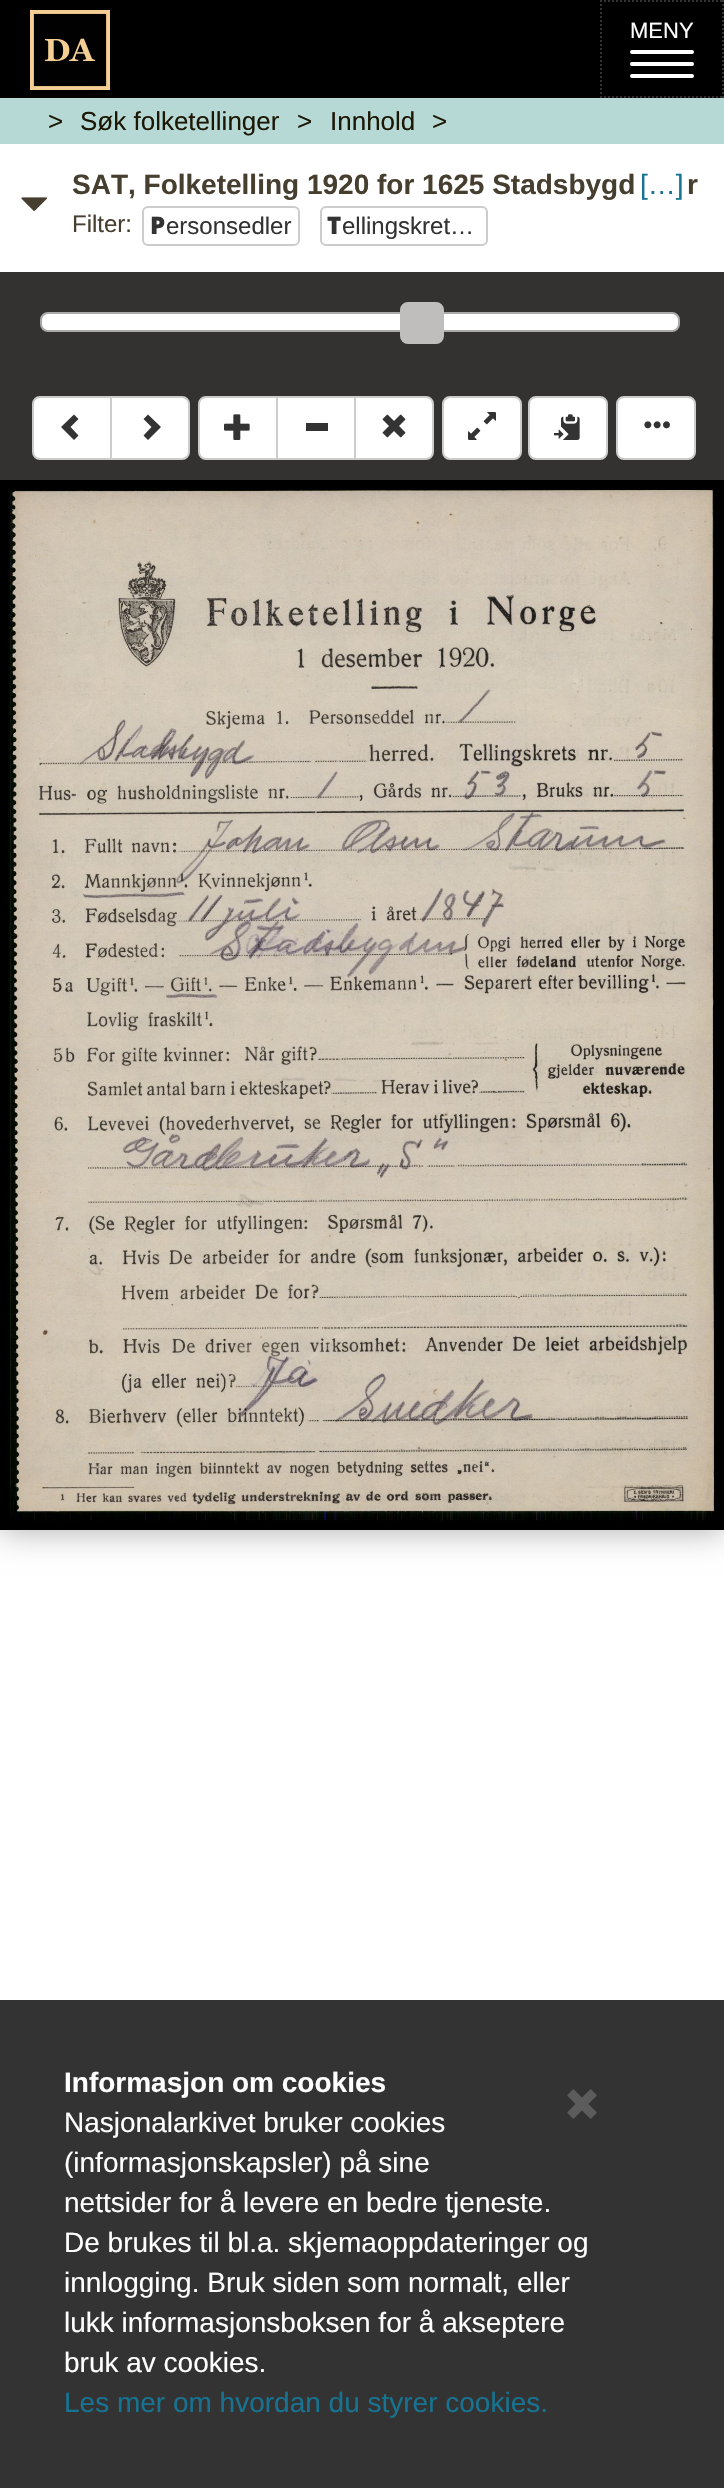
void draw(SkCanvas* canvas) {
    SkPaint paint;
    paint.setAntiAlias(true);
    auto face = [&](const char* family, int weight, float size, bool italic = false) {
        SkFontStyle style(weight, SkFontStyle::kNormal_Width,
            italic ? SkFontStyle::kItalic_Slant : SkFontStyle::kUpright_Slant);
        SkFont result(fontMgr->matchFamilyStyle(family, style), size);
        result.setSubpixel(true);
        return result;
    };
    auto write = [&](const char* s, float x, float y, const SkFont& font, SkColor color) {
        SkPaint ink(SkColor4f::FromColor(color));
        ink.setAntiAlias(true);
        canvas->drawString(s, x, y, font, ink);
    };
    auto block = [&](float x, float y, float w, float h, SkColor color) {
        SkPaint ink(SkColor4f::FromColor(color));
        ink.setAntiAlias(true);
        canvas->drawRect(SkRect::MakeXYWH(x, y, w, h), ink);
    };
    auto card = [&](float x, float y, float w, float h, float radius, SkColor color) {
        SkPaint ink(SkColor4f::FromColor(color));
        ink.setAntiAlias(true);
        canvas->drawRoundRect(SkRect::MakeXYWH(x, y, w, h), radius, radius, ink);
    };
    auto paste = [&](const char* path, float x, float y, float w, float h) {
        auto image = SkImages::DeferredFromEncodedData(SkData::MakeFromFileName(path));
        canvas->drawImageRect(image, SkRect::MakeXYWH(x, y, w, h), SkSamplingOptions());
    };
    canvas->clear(SK_ColorWHITE);
    block(0, 0, 724, 98, SK_ColorBLACK);
    paste("pic1.png", 30, 10, 80, 80);
    paint.setStyle(SkPaint::kStroke_Style);
    paint.setStrokeWidth(2);
    paint.setColor(SkColorSetRGB(51, 51, 51));
    paint.setPathEffect(SkDashPathEffect::Make({{2, 2}}, 0));
    canvas->drawPath(SkPathBuilder().moveTo(600, 1).lineTo(724, 1).detach(), paint);
    paint.setPathEffect(nullptr);
    paint.setPathEffect(SkDashPathEffect::Make({{2, 2}}, 0));
    canvas->drawPath(SkPathBuilder().moveTo(723, 0).lineTo(723, 98).detach(), paint);
    paint.setPathEffect(nullptr);
    paint.setPathEffect(SkDashPathEffect::Make({{2, 2}}, 0));
    canvas->drawPath(SkPathBuilder().moveTo(600, 97).lineTo(724, 97).detach(), paint);
    paint.setPathEffect(nullptr);
    paint.setPathEffect(SkDashPathEffect::Make({{2, 2}}, 0));
    canvas->drawPath(SkPathBuilder().moveTo(601, 0).lineTo(601, 98).detach(), paint);
    paint.setPathEffect(nullptr);
    auto kFont1 = face("Liberation Sans", 400, 22);
    write("MENY", 630, 38, kFont1, SK_ColorWHITE);
    card(630, 50, 64, 4, 2, SK_ColorWHITE);
    card(630, 62, 64, 4, 2, SK_ColorWHITE);
    card(630, 74, 64, 4, 2, SK_ColorWHITE);
    block(0, 98, 724, 46, SkColorSetRGB(182, 217, 214));
    auto kFont2 = face("Liberation Sans", 400, 26);
    write(">", 48, 130, kFont2, SkColorSetRGB(29, 23, 5));
    write("Søk folketellinger", 80, 130, kFont2, SkColorSetRGB(29, 23, 5));
    write(">", 297, 130, kFont2, SkColorSetRGB(29, 23, 5));
    write("Innhold", 330, 130, kFont2, SkColorSetRGB(29, 23, 5));
    write(">", 432, 130, kFont2, SkColorSetRGB(29, 23, 5));
    paste("pic2.png", 21, 197, 26, 14);
    auto kFont3 = face("Liberation Sans", 700, 28);
    write("SAT, Folketelling 1920 for 1625 Stadsbygd", 72, 194, kFont3, SkColorSetRGB(70, 62, 47));
    auto kFont4 = face("Liberation Sans", 400, 28);
    write("[…]", 640, 194, kFont4, SkColorSetRGB(23, 115, 145));
    write("r", 687, 194, kFont3, SkColorSetRGB(70, 62, 47));
    auto kFont5 = face("Liberation Sans", 400, 24);
    write("Filter:", 72, 232, kFont5, SkColorSetRGB(70, 62, 47));
    paint.setColor(SkColorSetRGB(204, 204, 204));
    canvas->drawRoundRect(SkRect::MakeXYWH(143, 207, 156, 38), 5, 5, paint);
    auto kFont6 = face("Noto Sans", 900, 24);
    write("P", 150, 234, kFont6, SkColorSetRGB(51, 51, 51));
    write("ersonsedler", 166, 234, kFont5, SkColorSetRGB(51, 51, 51));
    canvas->drawRoundRect(SkRect::MakeXYWH(321, 207, 166, 38), 5, 5, paint);
    write("T", 327, 234, kFont6, SkColorSetRGB(51, 51, 51));
    write("ellingskret…", 342, 234, kFont5, SkColorSetRGB(51, 51, 51));
    block(0, 272, 724, 208, SkColorSetRGB(51, 50, 49));
    paint.setStyle(SkPaint::kFill_Style);
    paint.setColor(SK_ColorWHITE);
    canvas->drawRoundRect(SkRect::MakeXYWH(41, 313, 638, 18), 7, 7, paint);
    paint.setStyle(SkPaint::kStroke_Style);
    paint.setColor(SkColorSetRGB(170, 170, 170));
    canvas->drawRoundRect(SkRect::MakeXYWH(41, 313, 638, 18), 7, 7, paint);
    paint.setStyle(SkPaint::kFill_Style);
    paint.setColor(SkColorSetRGB(191, 190, 189));
    canvas->drawRoundRect(SkRect::MakeXYWH(401, 303, 42, 40), 7, 7, paint);
    paint.setStyle(SkPaint::kStroke_Style);
    canvas->drawRoundRect(SkRect::MakeXYWH(401, 303, 42, 40), 7, 7, paint);
    paint.setStyle(SkPaint::kFill_Style);
    paint.setColor(SK_ColorWHITE);
    canvas->drawPath(SkPathBuilder().moveTo(206, 397).lineTo(277, 397).lineTo(277, 459).lineTo(206, 459).cubicTo(202, 459, 199, 456, 199, 452).lineTo(199, 404).cubicTo(199, 400, 202, 397, 206, 397).close().detach(), paint);
    paint.setStyle(SkPaint::kStroke_Style);
    paint.setColor(SkColorSetRGB(204, 204, 204));
    canvas->drawPath(SkPathBuilder().moveTo(206, 397).lineTo(277, 397).lineTo(277, 459).lineTo(206, 459).cubicTo(202, 459, 199, 456, 199, 452).lineTo(199, 404).cubicTo(199, 400, 202, 397, 206, 397).close().detach(), paint);
    paste("pic3.png", 224, 414, 26, 26);
    paint.setStyle(SkPaint::kFill_Style);
    paint.setColor(SK_ColorWHITE);
    canvas->drawRect(SkRect::MakeXYWH(277, 397, 78, 62), paint);
    paint.setStyle(SkPaint::kStroke_Style);
    paint.setColor(SkColorSetRGB(204, 204, 204));
    canvas->drawRect(SkRect::MakeXYWH(277, 397, 78, 62), paint);
    paint.setStyle(SkPaint::kFill_Style);
    paint.setColor(SK_ColorWHITE);
    canvas->drawPath(SkPathBuilder().moveTo(355, 397).lineTo(426, 397).cubicTo(430, 397, 433, 400, 433, 404).lineTo(433, 452).cubicTo(433, 456, 430, 459, 426, 459).lineTo(355, 459).close().detach(), paint);
    paint.setStyle(SkPaint::kStroke_Style);
    paint.setColor(SkColorSetRGB(204, 204, 204));
    canvas->drawPath(SkPathBuilder().moveTo(355, 397).lineTo(426, 397).cubicTo(430, 397, 433, 400, 433, 404).lineTo(433, 452).cubicTo(433, 456, 430, 459, 426, 459).lineTo(355, 459).close().detach(), paint);
    paste("pic4.png", 382, 414, 24, 24);
    paint.setStyle(SkPaint::kFill_Style);
    paint.setColor(SK_ColorWHITE);
    canvas->drawRoundRect(SkRect::MakeXYWH(443, 397, 78, 62), 7, 7, paint);
    paint.setStyle(SkPaint::kStroke_Style);
    paint.setColor(SkColorSetRGB(204, 204, 204));
    canvas->drawRoundRect(SkRect::MakeXYWH(443, 397, 78, 62), 7, 7, paint);
    paste("pic5.png", 468, 412, 28, 28);
    paint.setStyle(SkPaint::kFill_Style);
    paint.setColor(SK_ColorWHITE);
    canvas->drawRoundRect(SkRect::MakeXYWH(529, 397, 78, 62), 7, 7, paint);
    paint.setStyle(SkPaint::kStroke_Style);
    paint.setColor(SkColorSetRGB(204, 204, 204));
    canvas->drawRoundRect(SkRect::MakeXYWH(529, 397, 78, 62), 7, 7, paint);
    paste("pic6.png", 554, 414, 26, 26);
    paint.setStyle(SkPaint::kFill_Style);
    paint.setColor(SK_ColorWHITE);
    canvas->drawRoundRect(SkRect::MakeXYWH(617, 397, 78, 62), 7, 7, paint);
    paint.setStyle(SkPaint::kStroke_Style);
    paint.setColor(SkColorSetRGB(204, 204, 204));
    canvas->drawRoundRect(SkRect::MakeXYWH(617, 397, 78, 62), 7, 7, paint);
    canvas->save();
    canvas->clipRect(SkRect::MakeXYWH(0, 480, 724, 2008));
    paint.setStyle(SkPaint::kFill_Style);
    paint.setColor(SkColorSetARGB(77, 0, 0, 0));
    paint.setMaskFilter(SkMaskFilter::MakeBlur(kNormal_SkBlurStyle, 15));
    canvas->drawRect(SkRect::MakeXYWH(0, 482, 724, 1050), paint);
    paint.setMaskFilter(nullptr);
    canvas->restore();
    paint.setColor(SK_ColorWHITE);
    canvas->drawPath(SkPathBuilder().moveTo(40, 397).lineTo(111, 397).lineTo(111, 459).lineTo(40, 459).cubicTo(36, 459, 33, 456, 33, 452).lineTo(33, 404).cubicTo(33, 400, 36, 397, 40, 397).close().detach(), paint);
    paint.setStyle(SkPaint::kStroke_Style);
    paint.setColor(SkColorSetRGB(204, 204, 204));
    canvas->drawPath(SkPathBuilder().moveTo(40, 397).lineTo(111, 397).lineTo(111, 459).lineTo(40, 459).cubicTo(36, 459, 33, 456, 33, 452).lineTo(33, 404).cubicTo(33, 400, 36, 397, 40, 397).close().detach(), paint);
    paint.setStyle(SkPaint::kFill_Style);
    paint.setColor(SkColorSetRGB(51, 51, 51));
    canvas->drawPath(SkPathBuilder().moveTo(78.5f, 419).lineTo(70.5f, 427).lineTo(78.5f, 435.5f).lineTo(74, 440).lineTo(61, 427).lineTo(74, 414.5f).close().detach(), paint);
    paint.setColor(SK_ColorWHITE);
    canvas->drawPath(SkPathBuilder().moveTo(111, 397).lineTo(182, 397).cubicTo(186, 397, 189, 400, 189, 404).lineTo(189, 452).cubicTo(189, 456, 186, 459, 182, 459).lineTo(111, 459).close().detach(), paint);
    paint.setStyle(SkPaint::kStroke_Style);
    paint.setColor(SkColorSetRGB(204, 204, 204));
    canvas->drawPath(SkPathBuilder().moveTo(111, 397).lineTo(182, 397).cubicTo(186, 397, 189, 400, 189, 404).lineTo(189, 452).cubicTo(189, 456, 186, 459, 182, 459).lineTo(111, 459).close().detach(), paint);
    paint.setStyle(SkPaint::kFill_Style);
    paint.setColor(SkColorSetRGB(51, 51, 51));
    canvas->drawPath(SkPathBuilder().moveTo(161, 427).lineTo(148, 440).lineTo(143.5f, 435.5f).lineTo(151.5f, 427).lineTo(143.5f, 419).lineTo(148, 414.5f).close().detach(), paint);
    block(306, 423, 22, 8, SkColorSetRGB(51, 51, 51));
    paste("pic7.png", 644, 421, 26, 8);
    paste("pic8.png", 0, 480, 724, 1050);
    block(0, 2000, 724, 488, SkColorSetRGB(51, 51, 51));
    write("Informasjon om cookies", 64, 2092, kFont3, SK_ColorWHITE);
    paste("pic9.png", 567, 2089, 30, 30);
    write("Nasjonalarkivet bruker cookies", 64, 2132, kFont4, SK_ColorWHITE);
    write("(informasjonskapsler) på sine", 64, 2172, kFont4, SK_ColorWHITE);
    write("nettsider for å levere en bedre tjeneste.", 64, 2212, kFont4, SK_ColorWHITE);
    write("De brukes til bl.a. skjemaoppdateringer og", 64, 2252, kFont4, SK_ColorWHITE);
    write("innlogging. Bruk siden som normalt, eller", 64, 2292, kFont4, SK_ColorWHITE);
    write("lukk informasjonsboksen for å akseptere", 64, 2332, kFont4, SK_ColorWHITE);
    write("bruk av cookies.", 64, 2372, kFont4, SK_ColorWHITE);
    write("Les mer om hvordan du styrer cookies.", 64, 2412, kFont4, SkColorSetRGB(23, 115, 145));
}
